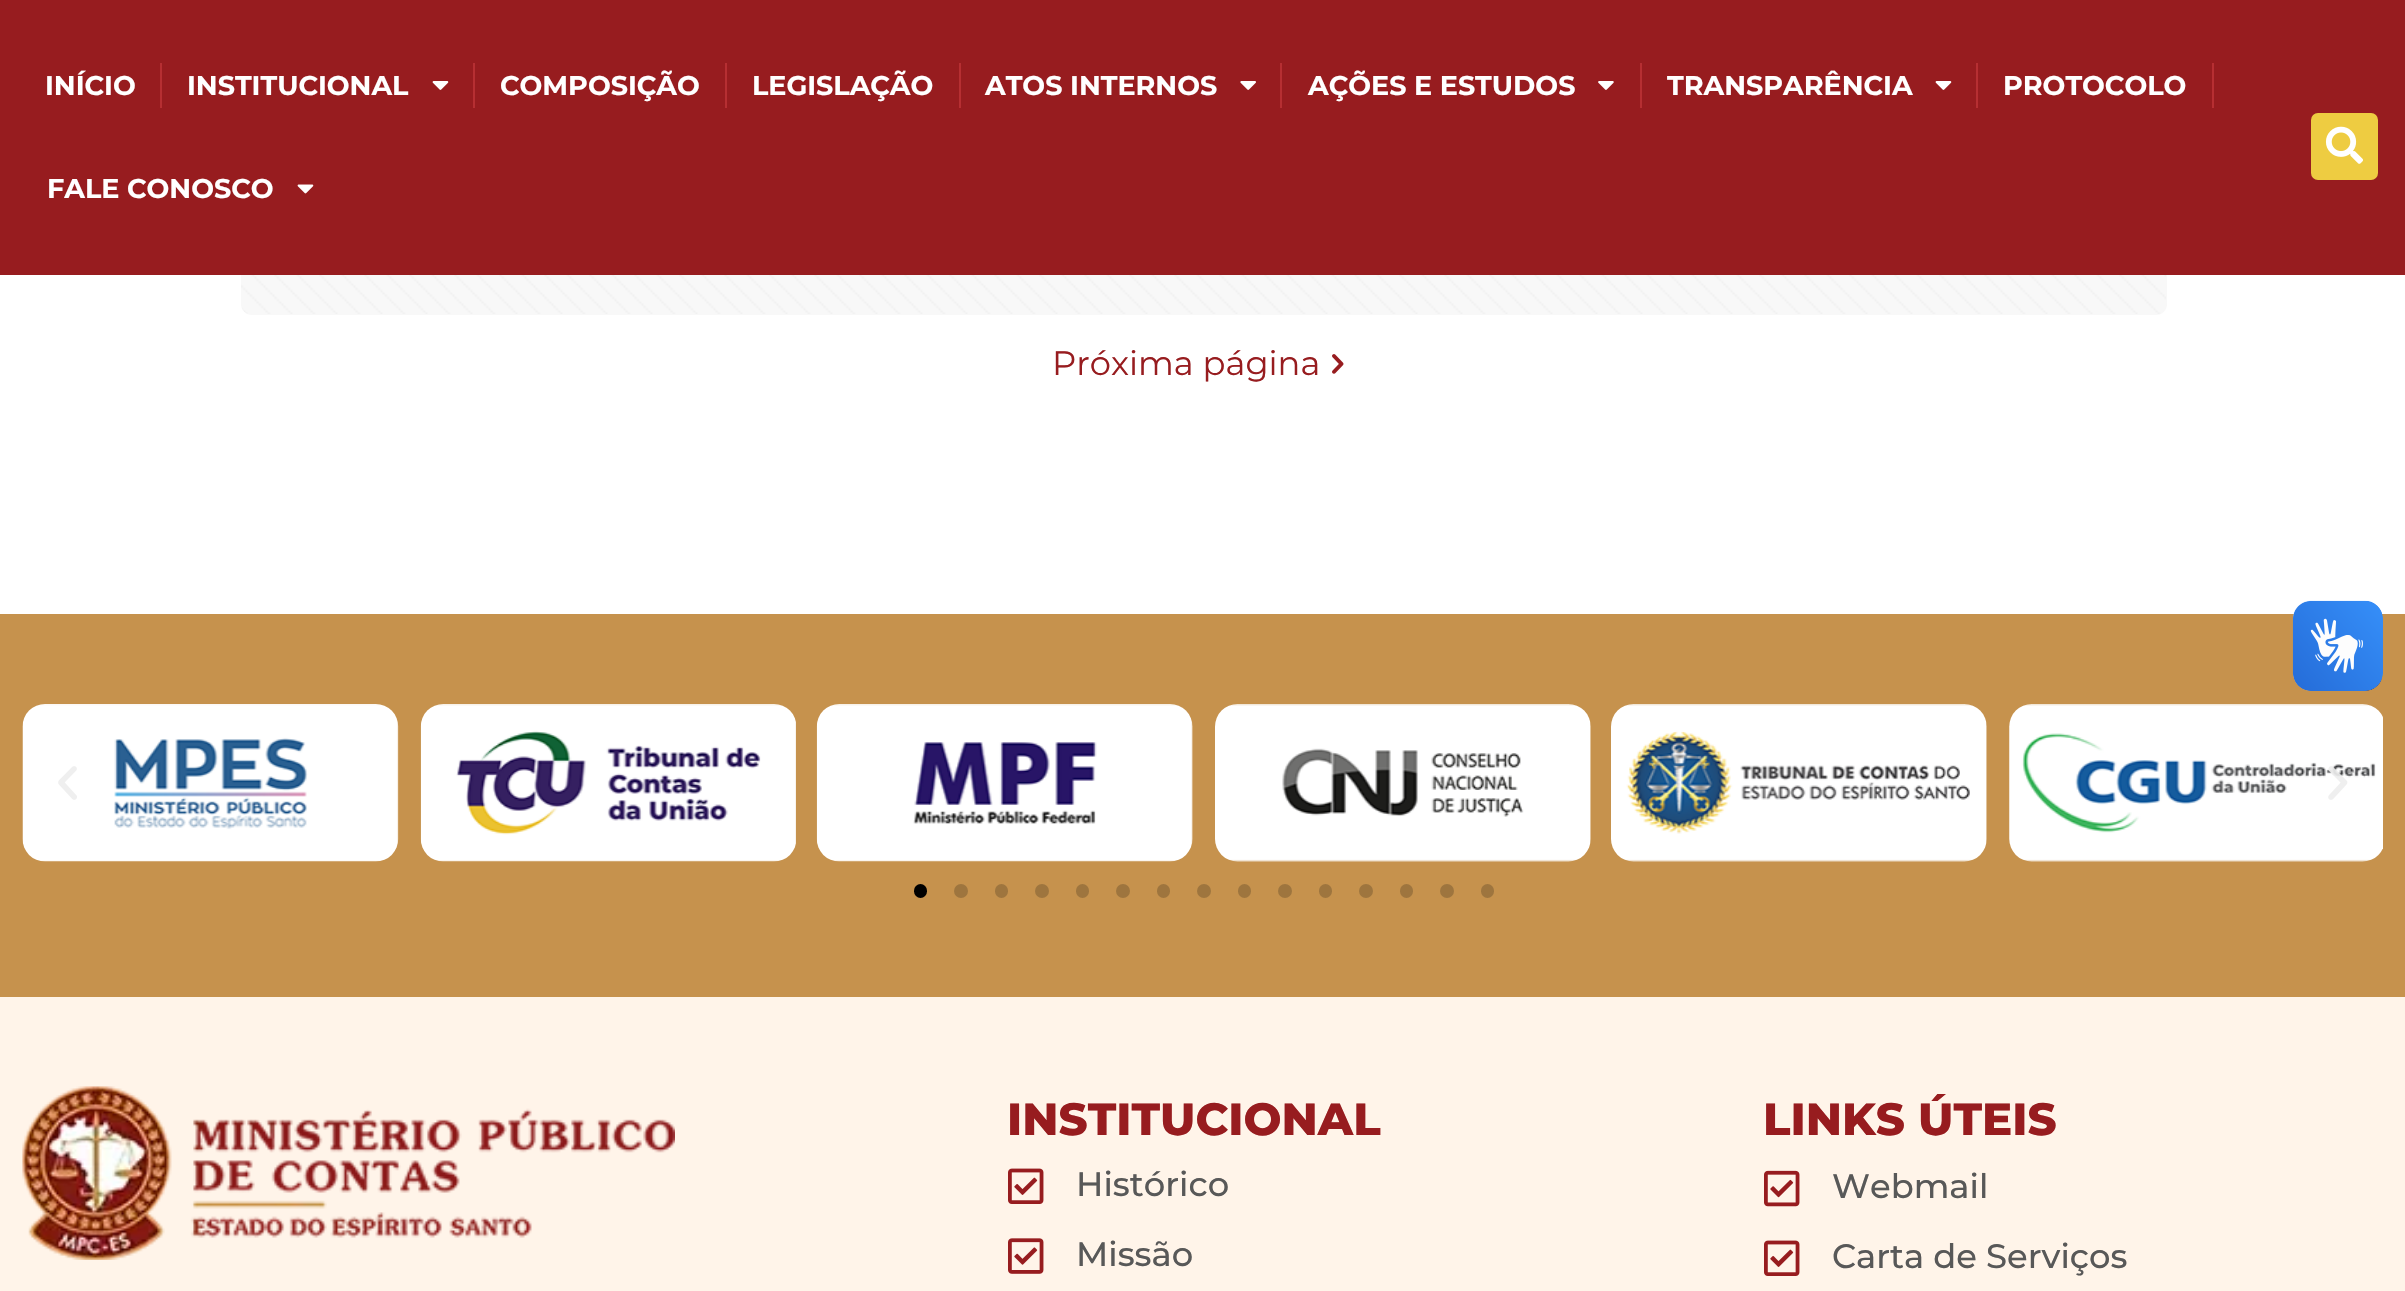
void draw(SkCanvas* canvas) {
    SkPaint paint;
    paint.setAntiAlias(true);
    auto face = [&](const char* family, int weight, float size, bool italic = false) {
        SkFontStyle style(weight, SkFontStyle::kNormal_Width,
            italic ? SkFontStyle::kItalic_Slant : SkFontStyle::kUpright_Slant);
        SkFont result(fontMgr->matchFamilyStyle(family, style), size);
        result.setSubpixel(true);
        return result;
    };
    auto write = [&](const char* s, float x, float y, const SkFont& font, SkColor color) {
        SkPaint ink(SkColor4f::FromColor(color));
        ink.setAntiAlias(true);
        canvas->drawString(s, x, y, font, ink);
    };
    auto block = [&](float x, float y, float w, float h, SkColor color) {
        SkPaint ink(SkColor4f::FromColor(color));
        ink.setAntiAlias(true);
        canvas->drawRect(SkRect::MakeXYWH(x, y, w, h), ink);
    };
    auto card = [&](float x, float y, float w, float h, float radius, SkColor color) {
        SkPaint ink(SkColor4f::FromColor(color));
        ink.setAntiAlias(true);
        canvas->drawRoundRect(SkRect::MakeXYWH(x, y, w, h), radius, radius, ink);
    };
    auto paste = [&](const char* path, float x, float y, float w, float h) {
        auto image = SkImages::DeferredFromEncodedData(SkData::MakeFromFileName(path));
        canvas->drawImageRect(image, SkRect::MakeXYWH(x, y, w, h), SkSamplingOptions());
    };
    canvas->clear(SK_ColorWHITE);
    card(241, -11, 1926, 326, 11, SkColorSetRGB(248, 248, 248));
    block(0, 0, 2405, 275, SkColorSetRGB(151, 28, 31));
    auto kFont1 = face("Montserrat", 700, 27);
    write("INÍCIO", 45, 95, kFont1, SK_ColorWHITE);
    block(160, 63, 2, 45, SkColorSetRGB(182, 47, 50));
    write("INSTITUCIONAL", 187, 95, kFont1, SK_ColorWHITE);
    paste("pic1.png", 432, 81, 17, 9);
    block(473, 63, 2, 45, SkColorSetRGB(182, 47, 50));
    write("COMPOSIÇÃO", 500, 95, kFont1, SK_ColorWHITE);
    block(725, 63, 2, 45, SkColorSetRGB(182, 47, 50));
    write("LEGISLAÇÃO", 752, 95, kFont1, SK_ColorWHITE);
    block(959, 63, 2, 45, SkColorSetRGB(182, 47, 50));
    write("ATOS INTERNOS", 985, 95, kFont1, SK_ColorWHITE);
    paste("pic2.png", 1240, 81, 16, 9);
    block(1280, 63, 2, 45, SkColorSetRGB(182, 47, 50));
    write("AÇÕES E ESTUDOS", 1308, 95, kFont1, SK_ColorWHITE);
    paste("pic3.png", 1598, 81, 16, 9);
    block(1640, 63, 2, 45, SkColorSetRGB(182, 47, 50));
    write("TRANSPARÊNCIA", 1667, 95, kFont1, SK_ColorWHITE);
    paste("pic1.png", 1935, 81, 17, 9);
    block(1976, 63, 2, 45, SkColorSetRGB(182, 47, 50));
    write("PROTOCOLO", 2003, 95, kFont1, SK_ColorWHITE);
    block(2212, 63, 2, 45, SkColorSetRGB(182, 47, 50));
    write("FALE CONOSCO", 47, 198, kFont1, SK_ColorWHITE);
    paste("pic4.png", 297, 184, 17, 10);
    card(2311, 113, 67, 67, 7, SkColorSetRGB(238, 204, 65));
    paste("pic5.png", 2325, 126, 38, 38);
    paste("pic6.png", 241, 275, 1925, 39);
    auto kFont2 = face("Montserrat", 400, 33.75f);
    write("Próxima página", 1052, 375, kFont2, SkColorSetRGB(151, 28, 31));
    paste("pic7.png", 1332, 354, 12, 20);
    block(0, 614, 2405, 383, SkColorSetRGB(198, 146, 77));
    paste("pic8.png", 2292, 600, 91, 91);
    paste("pic9.png", 2293, 601, 90, 90);
    paste("pic10.png", 22, 704, 377, 158);
    paste("pic11.png", 420, 704, 376, 158);
    paste("pic12.png", 816, 704, 377, 158);
    paste("pic13.png", 1215, 704, 376, 158);
    paste("pic14.png", 1611, 704, 376, 158);
    paste("pic15.png", 2009, 704, 374, 158);
    paste("pic16.png", 58, 766, 19, 34);
    paste("pic17.png", 2328, 766, 20, 34);
    card(914, 884, 13, 14, 6.5f, SK_ColorBLACK);
    paint.setColor(SkColorSetRGB(158, 117, 62));
    canvas->drawCircle(961, 891, 7, paint);
    card(995, 884, 13, 14, 6.5f, SkColorSetRGB(158, 117, 62));
    canvas->drawCircle(1042, 891, 7, paint);
    card(1076, 884, 13, 14, 6.5f, SkColorSetRGB(158, 117, 62));
    canvas->drawCircle(1123, 891, 7, paint);
    card(1157, 884, 13, 14, 6.5f, SkColorSetRGB(158, 117, 62));
    canvas->drawCircle(1204, 891, 7, paint);
    card(1238, 884, 13, 14, 6.5f, SkColorSetRGB(158, 117, 62));
    canvas->drawCircle(1285, 891, 7, paint);
    card(1319, 884, 13, 14, 6.5f, SkColorSetRGB(158, 117, 62));
    canvas->drawCircle(1366, 891, 7, paint);
    card(1400, 884, 13, 14, 6.5f, SkColorSetRGB(158, 117, 62));
    canvas->drawCircle(1447, 891, 7, paint);
    card(1481, 884, 13, 14, 6.5f, SkColorSetRGB(158, 117, 62));
    block(0, 997, 2405, 294, SkColorSetRGB(255, 244, 233));
    paste("pic18.png", 22, 1086, 653, 174);
    auto kFont3 = face("Montserrat", 800, 45);
    write("INSTITUCIONAL", 1007, 1135, kFont3, SkColorSetRGB(151, 28, 31));
    paste("pic19.png", 1008, 1168, 36, 36);
    auto kFont4 = face("Montserrat", 500, 33.75f);
    write("Histórico", 1076, 1196, kFont4, SkColorSetRGB(88, 88, 88));
    paste("pic20.png", 1008, 1238, 36, 36);
    write("Missão", 1076, 1266, kFont4, SkColorSetRGB(88, 88, 88));
    write("LINKS ÚTEIS", 1763, 1135, kFont3, SkColorSetRGB(151, 28, 31));
    paste("pic21.png", 1764, 1170, 36, 37);
    write("Webmail", 1832, 1198, kFont4, SkColorSetRGB(88, 88, 88));
    paste("pic19.png", 1764, 1240, 36, 36);
    write("Carta de Serviços", 1832, 1268, kFont4, SkColorSetRGB(88, 88, 88));
}
